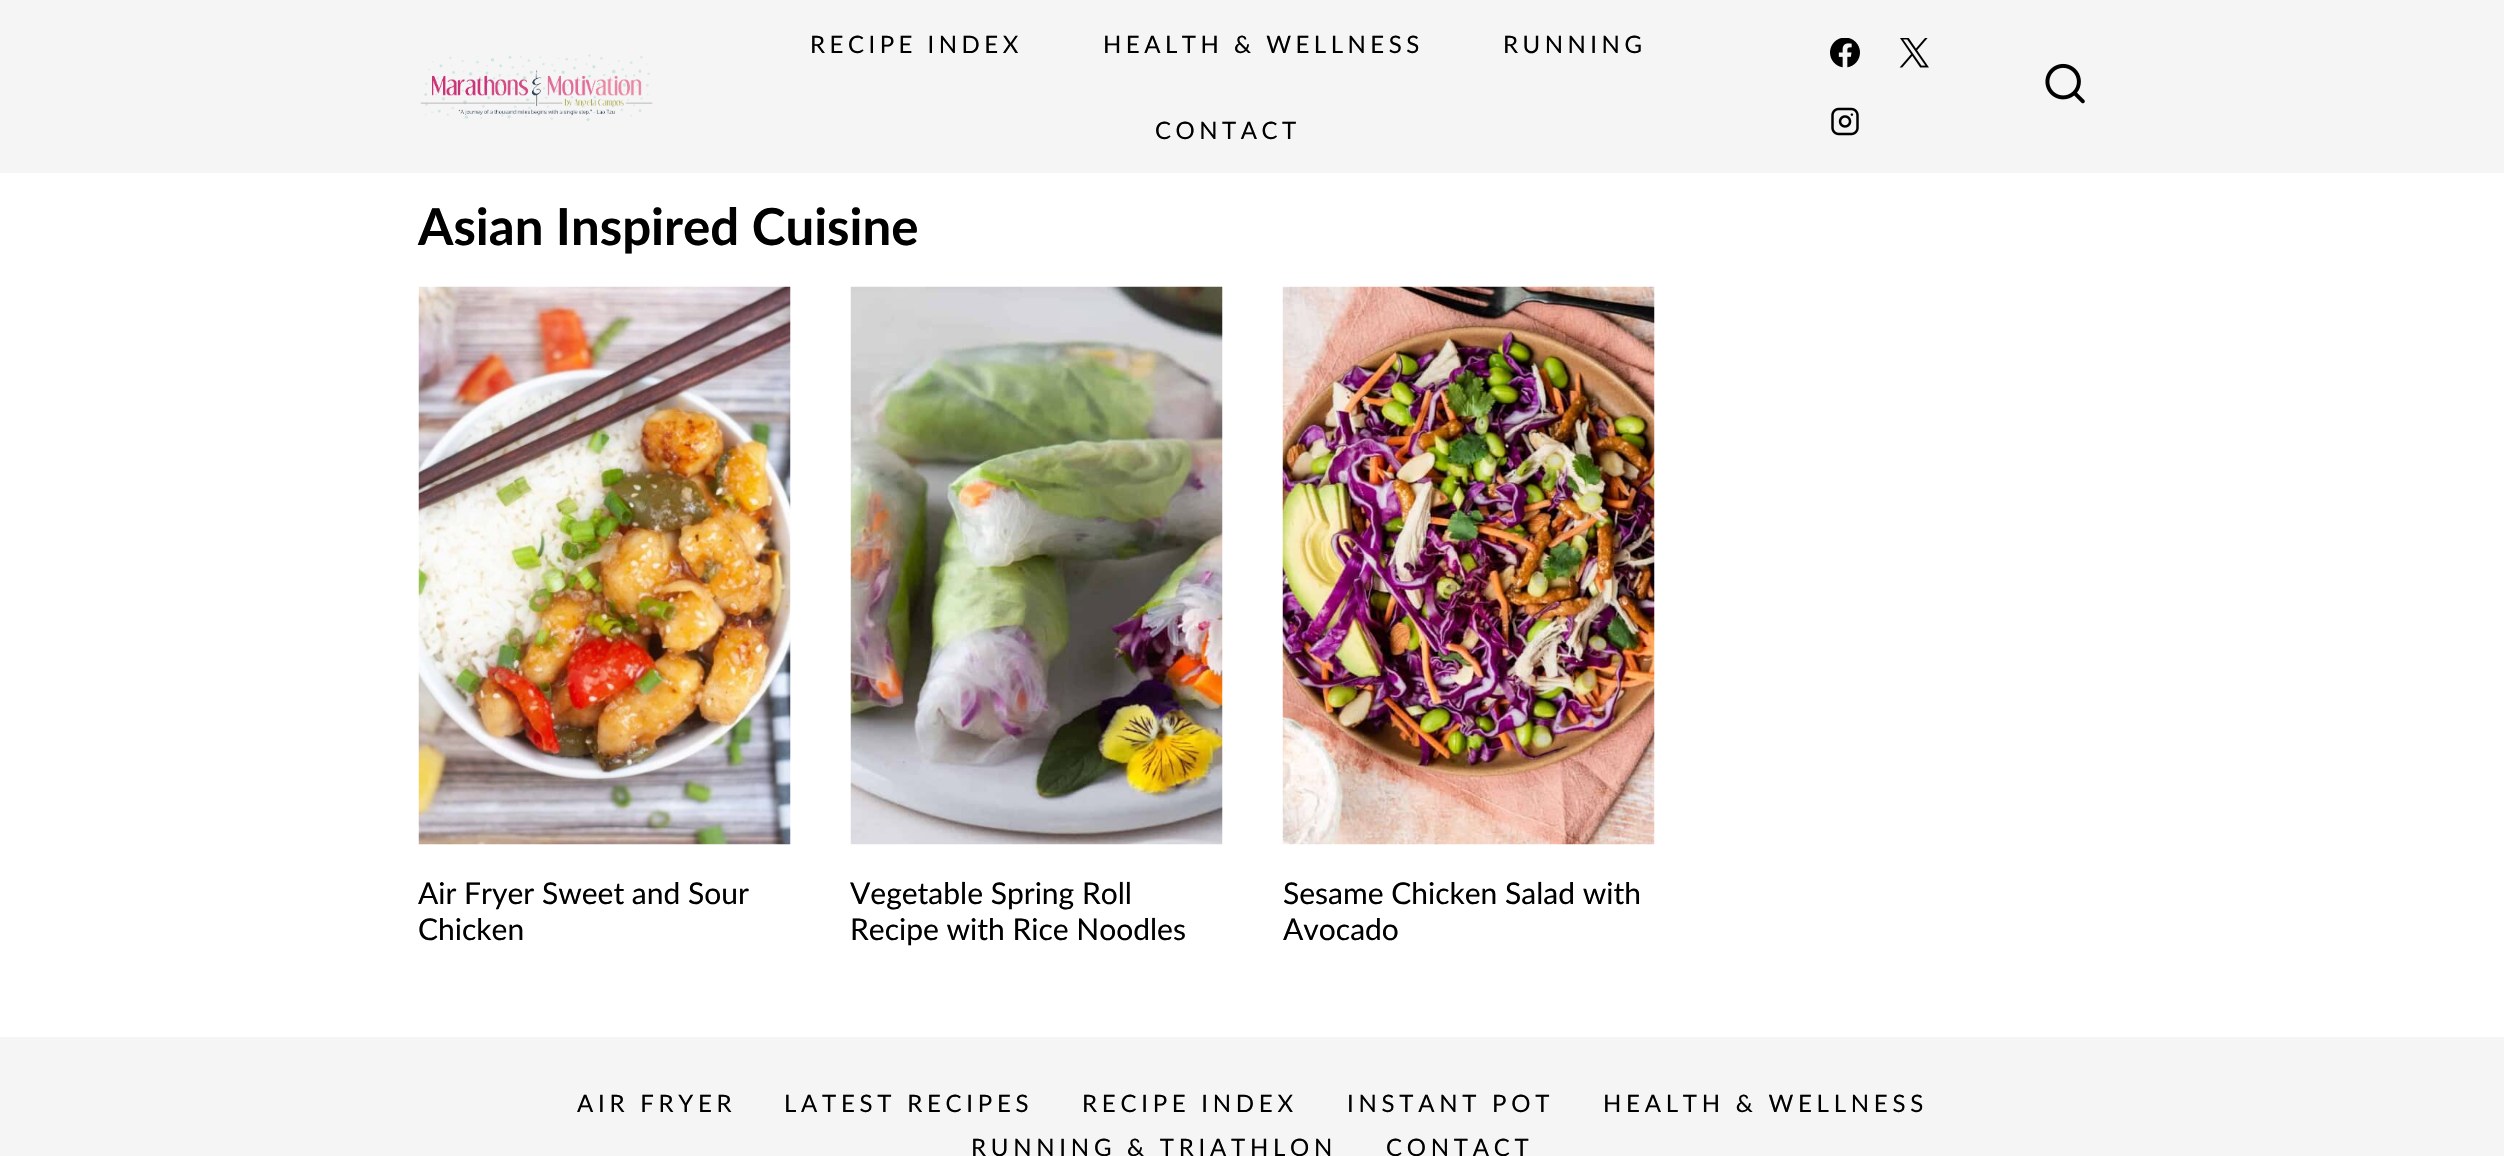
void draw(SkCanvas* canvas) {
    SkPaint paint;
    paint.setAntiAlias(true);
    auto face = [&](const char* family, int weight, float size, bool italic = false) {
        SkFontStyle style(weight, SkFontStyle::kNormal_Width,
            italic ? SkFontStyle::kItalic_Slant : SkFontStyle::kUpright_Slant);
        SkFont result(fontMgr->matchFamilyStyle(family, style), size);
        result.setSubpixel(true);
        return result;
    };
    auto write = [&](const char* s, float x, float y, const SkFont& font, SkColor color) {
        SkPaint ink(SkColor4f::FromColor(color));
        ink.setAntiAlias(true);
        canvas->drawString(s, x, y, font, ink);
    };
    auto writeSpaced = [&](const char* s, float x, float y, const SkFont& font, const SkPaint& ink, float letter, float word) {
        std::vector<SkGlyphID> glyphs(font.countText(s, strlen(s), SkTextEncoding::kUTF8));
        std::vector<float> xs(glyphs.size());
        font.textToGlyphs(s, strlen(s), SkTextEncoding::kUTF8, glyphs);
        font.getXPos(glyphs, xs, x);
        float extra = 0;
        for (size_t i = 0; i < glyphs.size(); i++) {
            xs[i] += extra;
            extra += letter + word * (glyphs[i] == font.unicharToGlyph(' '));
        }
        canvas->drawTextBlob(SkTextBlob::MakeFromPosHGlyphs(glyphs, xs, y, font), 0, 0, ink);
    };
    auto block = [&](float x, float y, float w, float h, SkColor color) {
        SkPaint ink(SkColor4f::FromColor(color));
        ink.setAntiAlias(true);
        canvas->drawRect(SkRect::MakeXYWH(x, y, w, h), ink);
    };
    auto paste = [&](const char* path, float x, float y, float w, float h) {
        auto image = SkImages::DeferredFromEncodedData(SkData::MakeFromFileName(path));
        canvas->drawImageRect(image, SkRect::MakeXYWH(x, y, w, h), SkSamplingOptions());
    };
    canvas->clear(SK_ColorWHITE);
    block(0, 0, 2504, 173, SkColorSetRGB(245, 245, 245));
    paste("pic1.png", 420, 54, 233, 68);
    auto kFont1 = face("Lato", 400, 24);
    paint.setColor(SK_ColorBLACK);
    writeSpaced("RECIPE INDEX", 810, 53, kFont1, paint, 4.5f, 0);
    writeSpaced("HEALTH & WELLNESS", 1103, 53, kFont1, paint, 4.5f, 0);
    writeSpaced("RUNNING", 1503, 53, kFont1, paint, 4.5f, 0);
    writeSpaced("CONTACT", 1155, 139, kFont1, paint, 4.5f, 0);
    paste("pic2.png", 1830, 38, 30, 30);
    paste("pic3.png", 1899, 38, 30, 30);
    paste("pic4.png", 1831, 107, 28, 29);
    paste("pic5.png", 2045, 63, 40, 41);
    auto kFont2 = face("Lato", 700, 51);
    write("Asian Inspired Cuisine", 418, 245, kFont2, SK_ColorBLACK);
    paste("pic6.png", 418, 286, 373, 559);
    auto kFont3 = face("Lato", 400, 30);
    write("Air Fryer Sweet and Sour", 418, 904, kFont3, SK_ColorBLACK);
    write("Chicken", 418, 940, kFont3, SK_ColorBLACK);
    paste("pic7.png", 850, 286, 373, 559);
    write("Vegetable Spring Roll", 850, 904, kFont3, SK_ColorBLACK);
    write("Recipe with Rice Noodles", 850, 940, kFont3, SK_ColorBLACK);
    paste("pic8.png", 1282, 286, 373, 559);
    write("Sesame Chicken Salad with", 1283, 904, kFont3, SK_ColorBLACK);
    write("Avocado", 1283, 940, kFont3, SK_ColorBLACK);
    block(0, 1037, 2504, 119, SkColorSetRGB(245, 245, 245));
    writeSpaced("AIR FRYER", 577, 1112, kFont1, paint, 4.75f, 0);
    writeSpaced("LATEST RECIPES", 784, 1112, kFont1, paint, 4.75f, 0);
    writeSpaced("RECIPE INDEX", 1082, 1112, kFont1, paint, 4.75f, 0);
    writeSpaced("INSTANT POT", 1347, 1112, kFont1, paint, 4.75f, 0);
    writeSpaced("HEALTH & WELLNESS", 1603, 1112, kFont1, paint, 4.75f, 0);
    writeSpaced("RUNNING & TRIATHLON", 971, 1156, kFont1, paint, 4.75f, 0);
    writeSpaced("CONTACT", 1386, 1156, kFont1, paint, 4.75f, 0);
}
